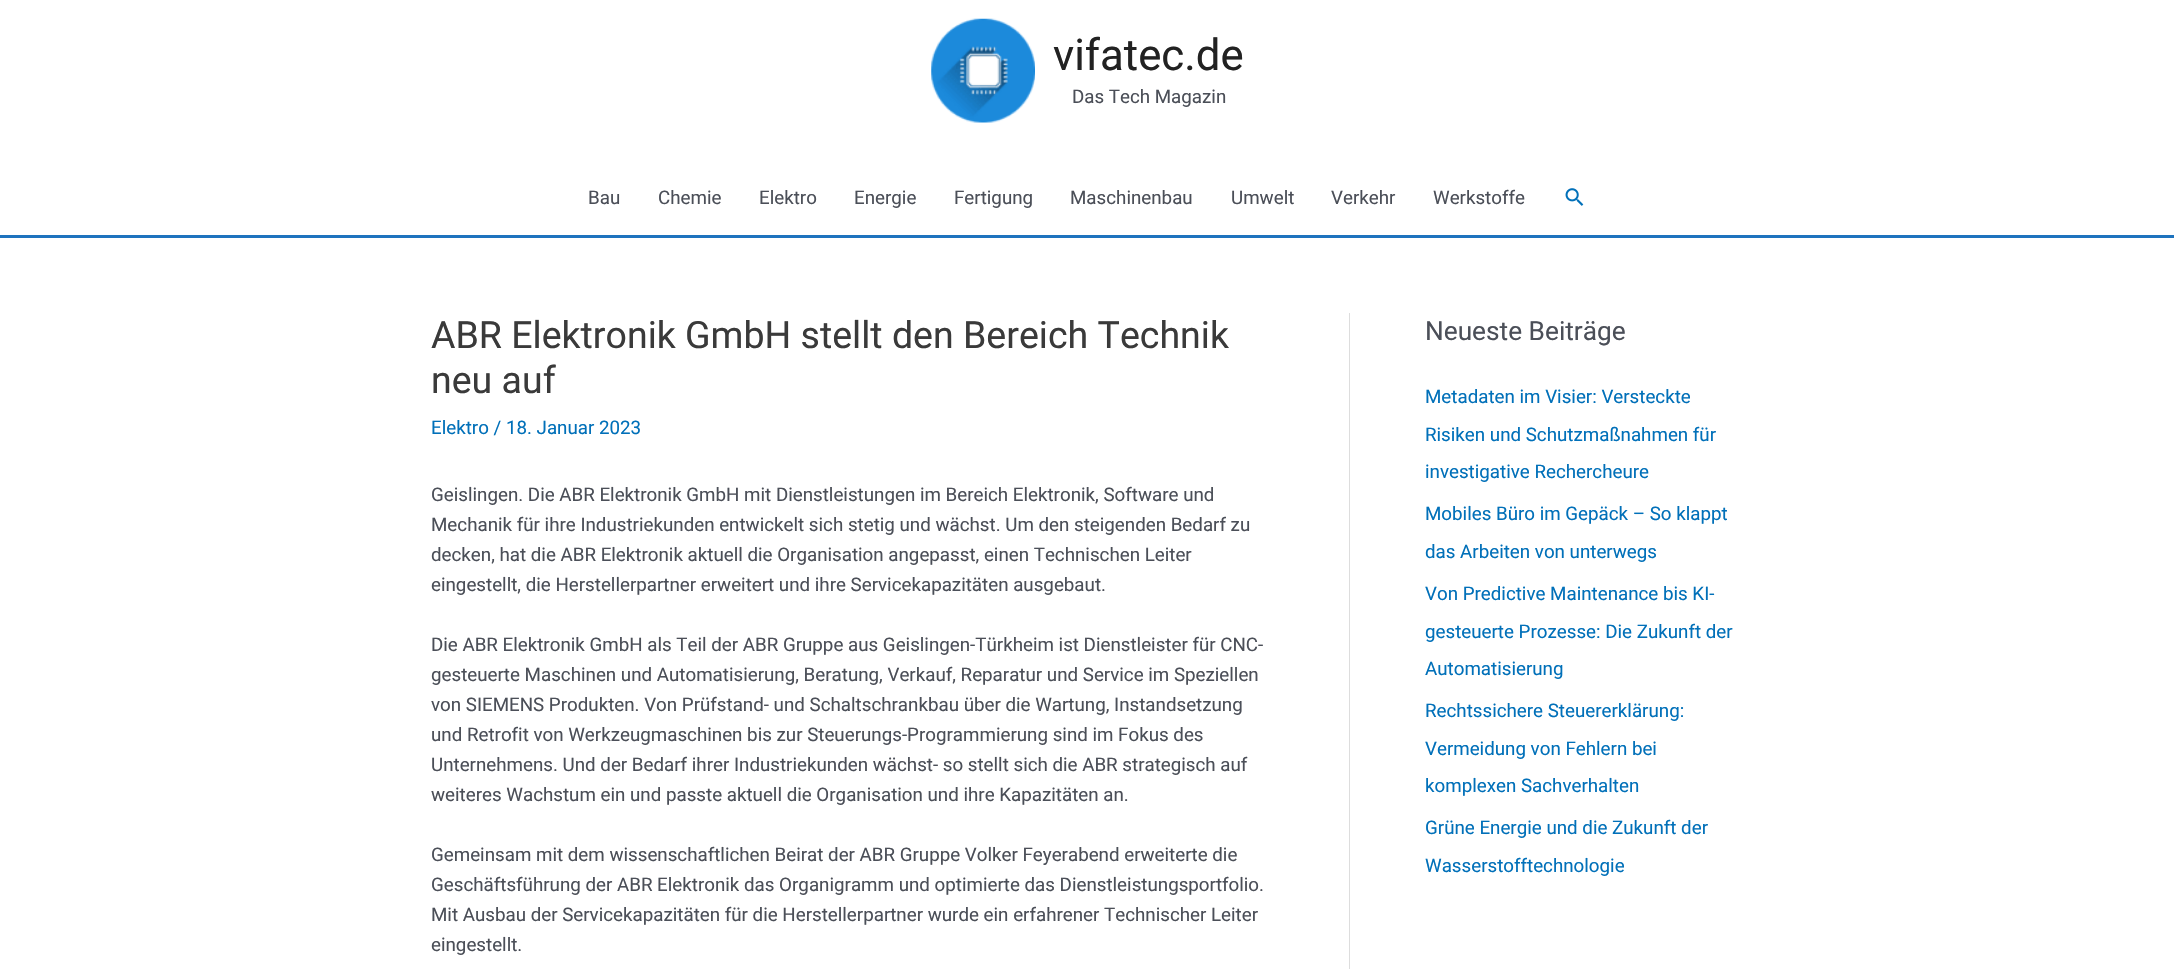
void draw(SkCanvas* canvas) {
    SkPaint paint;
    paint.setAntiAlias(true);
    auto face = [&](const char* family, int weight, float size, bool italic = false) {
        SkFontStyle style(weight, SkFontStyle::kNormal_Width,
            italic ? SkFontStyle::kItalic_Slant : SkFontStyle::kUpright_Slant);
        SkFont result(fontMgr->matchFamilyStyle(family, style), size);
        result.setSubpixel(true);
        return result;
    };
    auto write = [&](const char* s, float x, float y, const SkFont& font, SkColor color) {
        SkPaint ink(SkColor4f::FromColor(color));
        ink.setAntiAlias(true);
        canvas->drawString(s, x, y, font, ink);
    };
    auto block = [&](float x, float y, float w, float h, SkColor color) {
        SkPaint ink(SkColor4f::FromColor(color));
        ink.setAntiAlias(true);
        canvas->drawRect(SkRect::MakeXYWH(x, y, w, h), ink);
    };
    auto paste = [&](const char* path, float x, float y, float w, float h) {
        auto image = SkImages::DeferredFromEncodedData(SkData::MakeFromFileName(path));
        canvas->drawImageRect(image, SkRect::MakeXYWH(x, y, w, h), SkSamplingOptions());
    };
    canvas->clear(SK_ColorWHITE);
    block(0, 235, 2174, 3, SkColorSetRGB(30, 115, 190));
    paste("pic1.png", 931, 18, 104, 105);
    auto kFont1 = face("Roboto", 400, 43.75f);
    write("vifatec.de", 1053, 70, kFont1, SkColorSetRGB(34, 34, 34));
    auto kFont2 = face("Roboto", 400, 18.75f);
    write("Das Tech Magazin", 1072, 103, kFont2, SkColorSetRGB(75, 79, 88));
    write("Bau", 588, 204, kFont2, SkColorSetRGB(75, 79, 88));
    write("Chemie", 658, 204, kFont2, SkColorSetRGB(75, 79, 88));
    write("Elektro", 759, 204, kFont2, SkColorSetRGB(75, 79, 88));
    write("Energie", 854, 204, kFont2, SkColorSetRGB(75, 79, 88));
    write("Fertigung", 954, 204, kFont2, SkColorSetRGB(75, 79, 88));
    write("Maschinenbau", 1070, 204, kFont2, SkColorSetRGB(75, 79, 88));
    write("Umwelt", 1231, 204, kFont2, SkColorSetRGB(75, 79, 88));
    write("Verkehr", 1331, 204, kFont2, SkColorSetRGB(75, 79, 88));
    write("Werkstoffe", 1433, 204, kFont2, SkColorSetRGB(75, 79, 88));
    paste("pic2.png", 1565, 188, 19, 18);
    block(1349, 313, 1, 656, SkColorSetRGB(221, 221, 221));
    auto kFont3 = face("Roboto", 400, 37.5f);
    write("ABR Elektronik GmbH stellt den Bereich Technik", 431, 348, kFont3, SkColorSetRGB(58, 58, 58));
    write("neu auf", 431, 393, kFont3, SkColorSetRGB(58, 58, 58));
    write("Elektro / 18. Januar 2023", 431, 434, kFont2, SkColorSetRGB(1, 112, 185));
    write("Geislingen. Die ABR Elektronik GmbH mit Dienstleistungen im Bereich Elektronik, Software und", 431, 501, kFont2, SkColorSetRGB(75, 79, 88));
    write("Mechanik für ihre Industriekunden entwickelt sich stetig und wächst. Um den steigenden Bedarf zu", 431, 531, kFont2, SkColorSetRGB(75, 79, 88));
    write("decken, hat die ABR Elektronik aktuell die Organisation angepasst, einen Technischen Leiter", 431, 561, kFont2, SkColorSetRGB(75, 79, 88));
    write("eingestellt, die Herstellerpartner erweitert und ihre Servicekapazitäten ausgebaut.", 431, 591, kFont2, SkColorSetRGB(75, 79, 88));
    write("Die ABR Elektronik GmbH als Teil der ABR Gruppe aus Geislingen-Türkheim ist Dienstleister für CNC-", 431, 651, kFont2, SkColorSetRGB(75, 79, 88));
    write("gesteuerte Maschinen und Automatisierung, Beratung, Verkauf, Reparatur und Service im Speziellen", 431, 681, kFont2, SkColorSetRGB(75, 79, 88));
    write("von SIEMENS Produkten. Von Prüfstand- und Schaltschrankbau über die Wartung, Instandsetzung", 431, 711, kFont2, SkColorSetRGB(75, 79, 88));
    write("und Retrofit von Werkzeugmaschinen bis zur Steuerungs-Programmierung sind im Fokus des", 431, 741, kFont2, SkColorSetRGB(75, 79, 88));
    write("Unternehmens. Und der Bedarf ihrer Industriekunden wächst- so stellt sich die ABR strategisch auf", 431, 771, kFont2, SkColorSetRGB(75, 79, 88));
    write("weiteres Wachstum ein und passte aktuell die Organisation und ihre Kapazitäten an.", 431, 801, kFont2, SkColorSetRGB(75, 79, 88));
    write("Gemeinsam mit dem wissenschaftlichen Beirat der ABR Gruppe Volker Feyerabend erweiterte die", 431, 861, kFont2, SkColorSetRGB(75, 79, 88));
    write("Geschäftsführung der ABR Elektronik das Organigramm und optimierte das Dienstleistungsportfolio.", 431, 891, kFont2, SkColorSetRGB(75, 79, 88));
    write("Mit Ausbau der Servicekapazitäten für die Herstellerpartner wurde ein erfahrener Technischer Leiter", 431, 921, kFont2, SkColorSetRGB(75, 79, 88));
    write("eingestellt.", 431, 951, kFont2, SkColorSetRGB(75, 79, 88));
    auto kFont4 = face("Roboto", 400, 26.25f);
    write("Neueste Beiträge", 1425, 340, kFont4, SkColorSetRGB(75, 79, 88));
    write("Metadaten im Visier: Versteckte", 1425, 403, kFont2, SkColorSetRGB(1, 112, 185));
    write("Risiken und Schutzmaßnahmen für", 1425, 441, kFont2, SkColorSetRGB(1, 112, 185));
    write("investigative Rechercheure", 1425, 478, kFont2, SkColorSetRGB(1, 112, 185));
    write("Mobiles Büro im Gepäck – So klappt", 1425, 520, kFont2, SkColorSetRGB(1, 112, 185));
    write("das Arbeiten von unterwegs", 1425, 558, kFont2, SkColorSetRGB(1, 112, 185));
    write("Von Predictive Maintenance bis KI-", 1425, 600, kFont2, SkColorSetRGB(1, 112, 185));
    write("gesteuerte Prozesse: Die Zukunft der", 1425, 638, kFont2, SkColorSetRGB(1, 112, 185));
    write("Automatisierung", 1425, 675, kFont2, SkColorSetRGB(1, 112, 185));
    write("Rechtssichere Steuererklärung:", 1425, 717, kFont2, SkColorSetRGB(1, 112, 185));
    write("Vermeidung von Fehlern bei", 1425, 755, kFont2, SkColorSetRGB(1, 112, 185));
    write("komplexen Sachverhalten", 1425, 792, kFont2, SkColorSetRGB(1, 112, 185));
    write("Grüne Energie und die Zukunft der", 1425, 834, kFont2, SkColorSetRGB(1, 112, 185));
    write("Wasserstofftechnologie", 1425, 872, kFont2, SkColorSetRGB(1, 112, 185));
}
